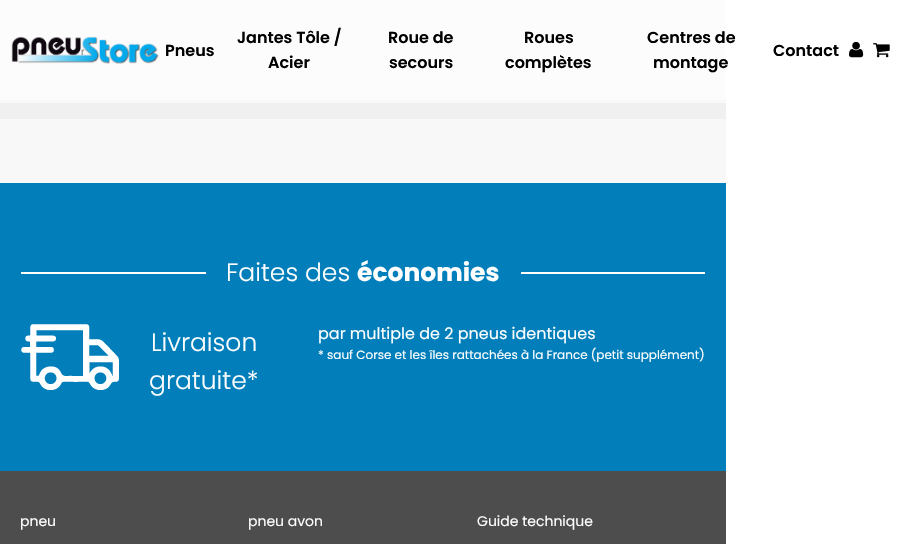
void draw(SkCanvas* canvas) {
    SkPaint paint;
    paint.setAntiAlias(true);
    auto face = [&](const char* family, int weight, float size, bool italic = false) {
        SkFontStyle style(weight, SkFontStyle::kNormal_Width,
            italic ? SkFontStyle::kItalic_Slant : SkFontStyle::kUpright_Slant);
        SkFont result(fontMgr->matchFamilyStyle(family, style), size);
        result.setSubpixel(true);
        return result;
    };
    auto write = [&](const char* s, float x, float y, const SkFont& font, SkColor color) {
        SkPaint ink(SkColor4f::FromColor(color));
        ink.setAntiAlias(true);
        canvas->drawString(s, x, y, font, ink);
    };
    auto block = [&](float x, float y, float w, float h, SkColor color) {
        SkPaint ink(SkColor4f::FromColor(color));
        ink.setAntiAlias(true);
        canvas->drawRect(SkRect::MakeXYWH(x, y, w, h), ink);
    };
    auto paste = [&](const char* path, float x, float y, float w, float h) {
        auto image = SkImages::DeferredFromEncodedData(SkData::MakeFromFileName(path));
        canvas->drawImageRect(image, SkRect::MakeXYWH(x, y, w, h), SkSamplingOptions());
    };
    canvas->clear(SK_ColorWHITE);
    block(0, 0, 726, 100, SkColorSetRGB(252, 252, 252));
    auto kFont1 = face("Liberation Sans", 400, 10);
    write("r", 81, 55, kFont1, SkColorSetRGB(128, 128, 128));
    paste("pic1.png", 11, 36, 148, 28);
    auto kFont2 = face("Poppins", 600, 16);
    write("Pneus", 165, 56, kFont2, SK_ColorBLACK);
    write("Jantes Tôle /", 237, 43, kFont2, SK_ColorBLACK);
    write("Acier", 268, 68, kFont2, SK_ColorBLACK);
    write("Roue de", 388, 43, kFont2, SK_ColorBLACK);
    write("secours", 389, 68, kFont2, SK_ColorBLACK);
    write("Roues", 524, 43, kFont2, SK_ColorBLACK);
    write("complètes", 505, 68, kFont2, SK_ColorBLACK);
    write("Centres de", 647, 43, kFont2, SK_ColorBLACK);
    write("montage", 653, 68, kFont2, SK_ColorBLACK);
    write("Contact", 773, 56, kFont2, SK_ColorBLACK);
    paste("pic2.png", 849, 41, 15, 17);
    paste("pic3.png", 873, 43, 17, 15);
    block(0, 103, 726, 16, SkColorSetRGB(240, 240, 240));
    block(0, 100, 726, 3, SkColorSetRGB(248, 248, 249));
    block(0, 119, 726, 64, SkColorSetRGB(248, 248, 249));
    block(0, 183, 726, 288, SkColorSetRGB(2, 127, 187));
    block(21, 272, 185, 2, SK_ColorWHITE);
    auto kFont3 = face("Poppins", 300, 25);
    write("Faites des", 226, 281, kFont3, SK_ColorWHITE);
    auto kFont4 = face("Poppins", 700, 25);
    write("économies", 357, 281, kFont4, SK_ColorWHITE);
    block(521, 272, 184, 2, SK_ColorWHITE);
    paste("pic4.png", 21, 324, 98, 66);
    write("Livraison", 151, 351, kFont3, SK_ColorWHITE);
    write("gratuite*", 149, 389, kFont3, SK_ColorWHITE);
    auto kFont5 = face("Poppins", 400, 16);
    write("par multiple de 2 pneus identiques", 318, 339, kFont5, SK_ColorWHITE);
    auto kFont6 = face("Poppins", 400, 12);
    write("* sauf Corse et les îles rattachées à la France (petit supplément)", 318, 359, kFont6, SK_ColorWHITE);
    block(0, 471, 726, 73, SkColorSetRGB(77, 77, 77));
    auto kFont7 = face("Poppins", 400, 14);
    write("pneu", 20, 526, kFont7, SK_ColorWHITE);
    write("pneu avon", 248, 526, kFont7, SK_ColorWHITE);
    write("Guide technique", 477, 526, kFont7, SK_ColorWHITE);
}
